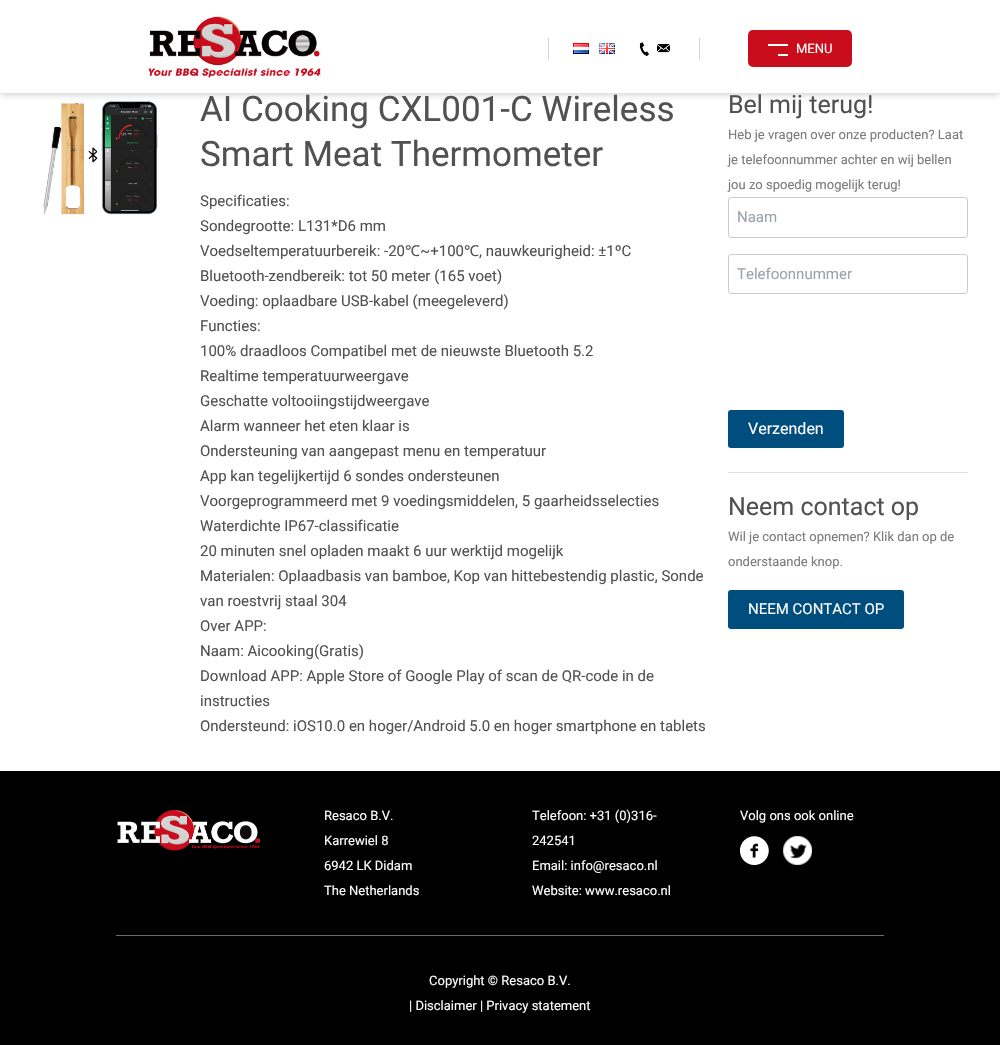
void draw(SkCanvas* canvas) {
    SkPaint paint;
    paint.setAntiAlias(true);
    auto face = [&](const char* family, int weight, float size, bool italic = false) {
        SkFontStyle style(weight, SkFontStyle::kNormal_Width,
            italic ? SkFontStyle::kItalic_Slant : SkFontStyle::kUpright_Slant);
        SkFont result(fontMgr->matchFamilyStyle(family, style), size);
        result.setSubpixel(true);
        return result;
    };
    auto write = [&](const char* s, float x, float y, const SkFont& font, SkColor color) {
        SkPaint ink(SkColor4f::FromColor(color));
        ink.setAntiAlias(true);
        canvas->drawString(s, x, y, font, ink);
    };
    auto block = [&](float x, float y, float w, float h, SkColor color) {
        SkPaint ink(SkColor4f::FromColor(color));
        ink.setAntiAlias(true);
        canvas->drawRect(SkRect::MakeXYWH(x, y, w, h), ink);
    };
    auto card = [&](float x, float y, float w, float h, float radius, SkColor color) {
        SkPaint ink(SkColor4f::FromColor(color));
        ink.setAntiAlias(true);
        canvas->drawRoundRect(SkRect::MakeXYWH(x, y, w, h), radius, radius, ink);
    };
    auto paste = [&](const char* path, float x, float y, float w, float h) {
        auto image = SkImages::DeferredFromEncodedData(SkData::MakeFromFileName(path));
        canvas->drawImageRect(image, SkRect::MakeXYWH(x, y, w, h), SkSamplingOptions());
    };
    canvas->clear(SK_ColorWHITE);
    paint.setColor(SkColorSetARGB(15, 0, 0, 0));
    paint.setMaskFilter(SkMaskFilter::MakeBlur(kNormal_SkBlurStyle, 2));
    canvas->drawRect(SkRect::MakeXYWH(1, 3, 998, 91), paint);
    paint.setMaskFilter(nullptr);
    paste("pic6.png", 43, 101, 115, 114);
    paint.setColor(SkColorSetARGB(26, 0, 0, 0));
    paint.setMaskFilter(SkMaskFilter::MakeBlur(kNormal_SkBlurStyle, 3));
    canvas->drawRect(SkRect::MakeXYWH(1, 5, 998, 91), paint);
    paint.setMaskFilter(nullptr);
    block(0, 0, 1000, 93, SK_ColorWHITE);
    paste("pic1.png", 148, 16, 173, 62);
    block(699, 38, 1, 22, SkColorSetRGB(209, 213, 219));
    block(548, 38, 1, 22, SkColorSetRGB(209, 213, 219));
    paste("pic2.png", 573, 43, 16, 11);
    paste("pic3.png", 599, 43, 16, 11);
    paste("pic4.png", 639, 42, 10, 14);
    paste("pic5.png", 657, 44, 13, 9);
    card(748, 30, 104, 37, 5, SkColorSetRGB(201, 13, 29));
    block(768, 44, 20, 2, SK_ColorWHITE);
    block(778, 54, 10, 2, SK_ColorWHITE);
    auto kFont1 = face("Roboto", 400, 13);
    write("MENU", 796, 53, kFont1, SK_ColorWHITE);
    auto kFont2 = face("Roboto", 400, 35);
    write("AI Cooking CXL001-C Wireless", 200, 121, kFont2, SkColorSetRGB(81, 81, 81));
    write("Smart Meat Thermometer", 200, 166, kFont2, SkColorSetRGB(81, 81, 81));
    auto kFont3 = face("Roboto", 400, 15);
    write("Specificaties:", 200, 206, kFont3, SkColorSetRGB(81, 81, 81));
    write("Sondegrootte: L131*D6 mm", 200, 231, kFont3, SkColorSetRGB(81, 81, 81));
    write("Voedseltemperatuurbereik: -20", 200, 256, kFont3, SkColorSetRGB(81, 81, 81));
    auto kFont4 = face("Noto Sans", 400, 15);
    write("℃", 405, 256, kFont4, SkColorSetRGB(81, 81, 81));
    write("~+100", 420, 256, kFont3, SkColorSetRGB(81, 81, 81));
    write("℃", 464, 256, kFont4, SkColorSetRGB(81, 81, 81));
    write(", nauwkeurigheid: ±1ºC", 479, 256, kFont3, SkColorSetRGB(81, 81, 81));
    write("Bluetooth-zendbereik: tot 50 meter (165 voet)", 200, 281, kFont3, SkColorSetRGB(81, 81, 81));
    write("Voeding: oplaadbare USB-kabel (meegeleverd)", 200, 306, kFont3, SkColorSetRGB(81, 81, 81));
    write("Functies:", 200, 331, kFont3, SkColorSetRGB(81, 81, 81));
    write("100% draadloos Compatibel met de nieuwste Bluetooth 5.2", 200, 356, kFont3, SkColorSetRGB(81, 81, 81));
    write("Realtime temperatuurweergave", 200, 381, kFont3, SkColorSetRGB(81, 81, 81));
    write("Geschatte voltooiingstijdweergave", 200, 406, kFont3, SkColorSetRGB(81, 81, 81));
    write("Alarm wanneer het eten klaar is", 200, 431, kFont3, SkColorSetRGB(81, 81, 81));
    write("Ondersteuning van aangepast menu en temperatuur", 200, 456, kFont3, SkColorSetRGB(81, 81, 81));
    write("App kan tegelijkertijd 6 sondes ondersteunen", 200, 481, kFont3, SkColorSetRGB(81, 81, 81));
    write("Voorgeprogrammeerd met 9 voedingsmiddelen, 5 gaarheidsselecties", 200, 506, kFont3, SkColorSetRGB(81, 81, 81));
    write("Waterdichte IP67-classificatie", 200, 531, kFont3, SkColorSetRGB(81, 81, 81));
    write("20 minuten snel opladen maakt 6 uur werktijd mogelijk", 200, 556, kFont3, SkColorSetRGB(81, 81, 81));
    write("Materialen: Oplaadbasis van bamboe, Kop van hittebestendig plastic, Sonde", 200, 581, kFont3, SkColorSetRGB(81, 81, 81));
    write("van roestvrij staal 304", 200, 606, kFont3, SkColorSetRGB(81, 81, 81));
    write("Over APP:", 200, 631, kFont3, SkColorSetRGB(81, 81, 81));
    write("Naam: Aicooking(Gratis)", 200, 656, kFont3, SkColorSetRGB(81, 81, 81));
    write("Download APP: Apple Store of Google Play of scan de QR-code in de", 200, 681, kFont3, SkColorSetRGB(81, 81, 81));
    write("instructies", 200, 706, kFont3, SkColorSetRGB(81, 81, 81));
    write("Ondersteund: iOS10.0 en hoger/Android 5.0 en hoger smartphone en tablets", 200, 731, kFont3, SkColorSetRGB(81, 81, 81));
    block(728, 472, 240, 1, SkColorSetRGB(221, 221, 221));
    auto kFont5 = face("Roboto", 400, 25);
    write("Bel mij terug!", 728, 113, kFont5, SkColorSetRGB(81, 81, 81));
    write("Heb je vragen over onze producten? Laat", 728, 139, kFont1, SkColorSetRGB(122, 122, 122));
    write("je telefoonnummer achter en wij bellen", 728, 164, kFont1, SkColorSetRGB(122, 122, 122));
    write("jou zo spoedig mogelijk terug!", 728, 189, kFont1, SkColorSetRGB(122, 122, 122));
    paint.setStyle(SkPaint::kStroke_Style);
    paint.setStrokeWidth(1);
    paint.setColor(SkColorSetRGB(204, 204, 204));
    canvas->drawRoundRect(SkRect::MakeXYWH(728.5f, 197.5f, 239, 40), 2.5f, 2.5f, paint);
    write("Naam", 737, 222, kFont3, SkColorSetRGB(156, 163, 175));
    canvas->drawRoundRect(SkRect::MakeXYWH(728.5f, 254.5f, 239, 39), 2.5f, 2.5f, paint);
    write("Telefoonnummer", 737, 279, kFont3, SkColorSetRGB(156, 163, 175));
    card(728, 410, 116, 38, 3, SkColorSetRGB(0, 78, 125));
    auto kFont6 = face("Roboto", 400, 16);
    write("Verzenden", 748, 434, kFont6, SK_ColorWHITE);
    write("Neem contact op", 728, 515, kFont5, SkColorSetRGB(81, 81, 81));
    write("Wil je contact opnemen? Klik dan op de", 728, 541, kFont1, SkColorSetRGB(122, 122, 122));
    write("onderstaande knop.", 728, 566, kFont1, SkColorSetRGB(122, 122, 122));
    card(728, 590, 176, 39, 3, SkColorSetRGB(0, 78, 125));
    write("NEEM CONTACT OP", 748, 614, kFont3, SK_ColorWHITE);
    block(0, 771, 1000, 274, SK_ColorBLACK);
    block(116, 935, 768, 1, SkColorSetRGB(107, 107, 107));
    paste("pic7.png", 117, 810, 143, 41);
    write("Resaco B.V.", 324, 820, kFont1, SK_ColorWHITE);
    write("Karrewiel 8", 324, 845, kFont1, SK_ColorWHITE);
    write("6942 LK Didam", 324, 870, kFont1, SK_ColorWHITE);
    write("The Netherlands", 324, 895, kFont1, SK_ColorWHITE);
    write("Telefoon: +31 (0)316-", 532, 820, kFont1, SK_ColorWHITE);
    write("242541", 532, 845, kFont1, SK_ColorWHITE);
    write("Email: info@resaco.nl", 532, 870, kFont1, SK_ColorWHITE);
    write("Website: www.resaco.nl", 532, 895, kFont1, SK_ColorWHITE);
    write("Volg ons ook online", 740, 820, kFont1, SK_ColorWHITE);
    paste("pic8.png", 740, 836, 29, 29);
    paste("pic9.png", 783, 836, 29, 29);
    write("Copyright © Resaco B.V.", 429, 985, kFont1, SK_ColorWHITE);
    write("| Disclaimer | Privacy statement", 409, 1010, kFont1, SK_ColorWHITE);
}
